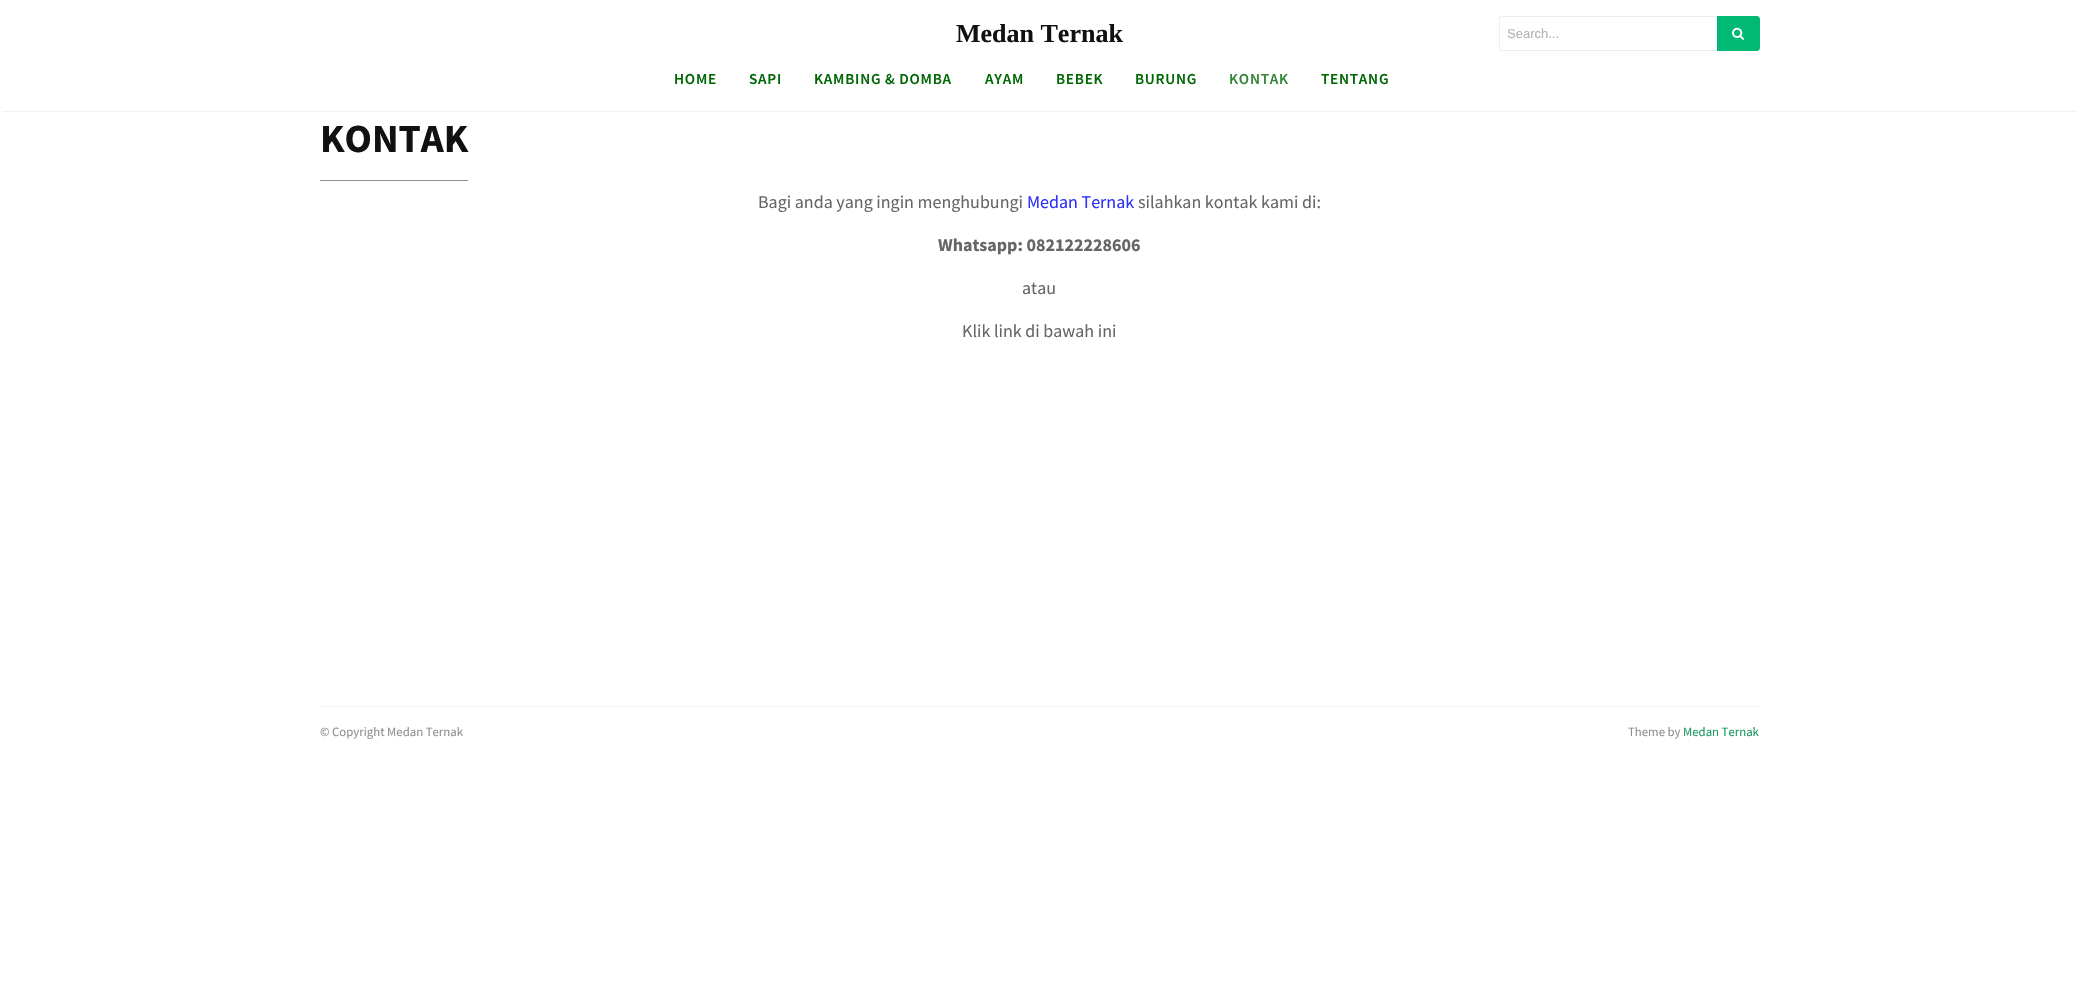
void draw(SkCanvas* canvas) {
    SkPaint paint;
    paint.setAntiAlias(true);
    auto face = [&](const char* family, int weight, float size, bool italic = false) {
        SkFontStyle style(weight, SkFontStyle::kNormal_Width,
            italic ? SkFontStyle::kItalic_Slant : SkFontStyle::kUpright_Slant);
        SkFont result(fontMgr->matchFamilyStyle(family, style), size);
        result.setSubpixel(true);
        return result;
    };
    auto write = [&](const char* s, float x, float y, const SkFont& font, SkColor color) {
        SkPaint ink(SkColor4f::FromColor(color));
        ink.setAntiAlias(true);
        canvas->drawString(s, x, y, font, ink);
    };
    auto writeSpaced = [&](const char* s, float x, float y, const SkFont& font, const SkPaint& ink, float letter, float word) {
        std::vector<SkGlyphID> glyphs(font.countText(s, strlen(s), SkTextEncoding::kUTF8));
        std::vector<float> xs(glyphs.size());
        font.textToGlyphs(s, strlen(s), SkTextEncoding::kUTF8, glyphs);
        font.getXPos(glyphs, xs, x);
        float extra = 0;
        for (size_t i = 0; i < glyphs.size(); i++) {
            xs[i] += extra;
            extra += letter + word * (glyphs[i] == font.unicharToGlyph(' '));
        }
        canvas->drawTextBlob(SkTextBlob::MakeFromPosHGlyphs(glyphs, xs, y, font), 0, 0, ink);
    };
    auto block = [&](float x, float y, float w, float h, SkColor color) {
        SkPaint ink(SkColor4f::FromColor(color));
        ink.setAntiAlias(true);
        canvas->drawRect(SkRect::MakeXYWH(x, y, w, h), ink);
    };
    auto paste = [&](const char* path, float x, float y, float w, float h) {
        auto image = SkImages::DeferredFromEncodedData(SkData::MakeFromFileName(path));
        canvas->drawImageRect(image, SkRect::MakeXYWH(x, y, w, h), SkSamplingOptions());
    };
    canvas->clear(SK_ColorWHITE);
    canvas->save();
    canvas->clipRect(SkRect::MakeXYWH(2, 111, 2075, 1));
    paint.setColor(SkColorSetARGB(38, 0, 0, 0));
    paint.setMaskFilter(SkMaskFilter::MakeBlur(kNormal_SkBlurStyle, 1));
    canvas->drawRect(SkRect::MakeXYWH(2, 4, 2075, 107), paint);
    paint.setMaskFilter(nullptr);
    canvas->restore();
    auto kFont1 = face("Liberation Serif", 700, 26);
    write("Medan Ternak", 956, 42, kFont1, SkColorSetRGB(17, 17, 17));
    paint.setStyle(SkPaint::kStroke_Style);
    paint.setStrokeWidth(1);
    paint.setColor(SkColorSetRGB(238, 238, 238));
    canvas->drawPath(SkPathBuilder().moveTo(1502, 16.5f).lineTo(1718.5f, 16.5f).lineTo(1718.5f, 50.5f).lineTo(1502, 50.5f).cubicTo(1500.5f, 50.5f, 1499.5f, 49.5f, 1499.5f, 48).lineTo(1499.5f, 19).cubicTo(1499.5f, 17.5f, 1500.5f, 16.5f, 1502, 16.5f).close().detach(), paint);
    auto kFont2 = face("Liberation Sans", 400, 13);
    write("Search...", 1507, 38, kFont2, SkColorSetRGB(178, 178, 178));
    paint.setStyle(SkPaint::kFill_Style);
    paint.setColor(SkColorSetRGB(2, 184, 117));
    canvas->drawPath(SkPathBuilder().moveTo(1717, 16).lineTo(1757, 16).cubicTo(1758.5f, 16, 1760, 17.5f, 1760, 19).lineTo(1760, 48).cubicTo(1760, 49.5f, 1758.5f, 51, 1757, 51).lineTo(1717, 51).close().detach(), paint);
    paste("pic1.png", 1732, 27, 12, 13);
    auto kFont3 = face("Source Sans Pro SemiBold", 600, 15.25f);
    paint.setColor(SkColorSetRGB(0, 104, 5));
    writeSpaced("HOME", 674, 84, kFont3, paint, 0.75f, 0);
    writeSpaced("SAPI", 749, 84, kFont3, paint, 0.75f, 0);
    writeSpaced("KAMBING & DOMBA", 814, 84, kFont3, paint, 0.75f, 0);
    writeSpaced("AYAM", 985, 84, kFont3, paint, 0.75f, 0);
    writeSpaced("BEBEK", 1056, 84, kFont3, paint, 0.75f, 0);
    writeSpaced("BURUNG", 1135, 84, kFont3, paint, 0.75f, 0);
    paint.setColor(SkColorSetRGB(51, 134, 55));
    writeSpaced("KONTAK", 1229, 84, kFont3, paint, 0.75f, 0);
    paint.setColor(SkColorSetRGB(0, 104, 5));
    writeSpaced("TENTANG", 1321, 84, kFont3, paint, 0.75f, 0);
    block(320, 180, 148, 1, SkColorSetRGB(143, 143, 143));
    auto kFont4 = face("Source Sans Pro", 700, 40);
    write("KONTAK", 320, 152, kFont4, SkColorSetRGB(17, 17, 17));
    auto kFont5 = face("Source Sans Pro", 400, 18);
    write("Bagi anda yang ingin menghubungi", 758, 208, kFont5, SkColorSetRGB(102, 102, 102));
    write("Medan Ternak", 1027, 208, kFont5, SkColorSetRGB(45, 48, 252));
    write("silahkan kontak kami di:", 1138, 208, kFont5, SkColorSetRGB(102, 102, 102));
    auto kFont6 = face("Source Sans Pro", 700, 18);
    write("Whatsapp: 082122228606", 938, 251, kFont6, SkColorSetRGB(102, 102, 102));
    write("atau", 1022, 294, kFont5, SkColorSetRGB(102, 102, 102));
    write("Klik link di bawah ini", 962, 337, kFont5, SkColorSetRGB(102, 102, 102));
    block(320, 706, 1440, 1, SkColorSetRGB(242, 242, 242));
    auto kFont7 = face("Source Sans Pro", 400, 12.75f);
    write("© Copyright Medan Ternak", 320, 736, kFont7, SkColorSetRGB(143, 143, 143));
    write("Theme by", 1628, 736, kFont7, SkColorSetRGB(143, 143, 143));
    write("Medan Ternak", 1683, 736, kFont7, SkColorSetRGB(28, 153, 99));
}
